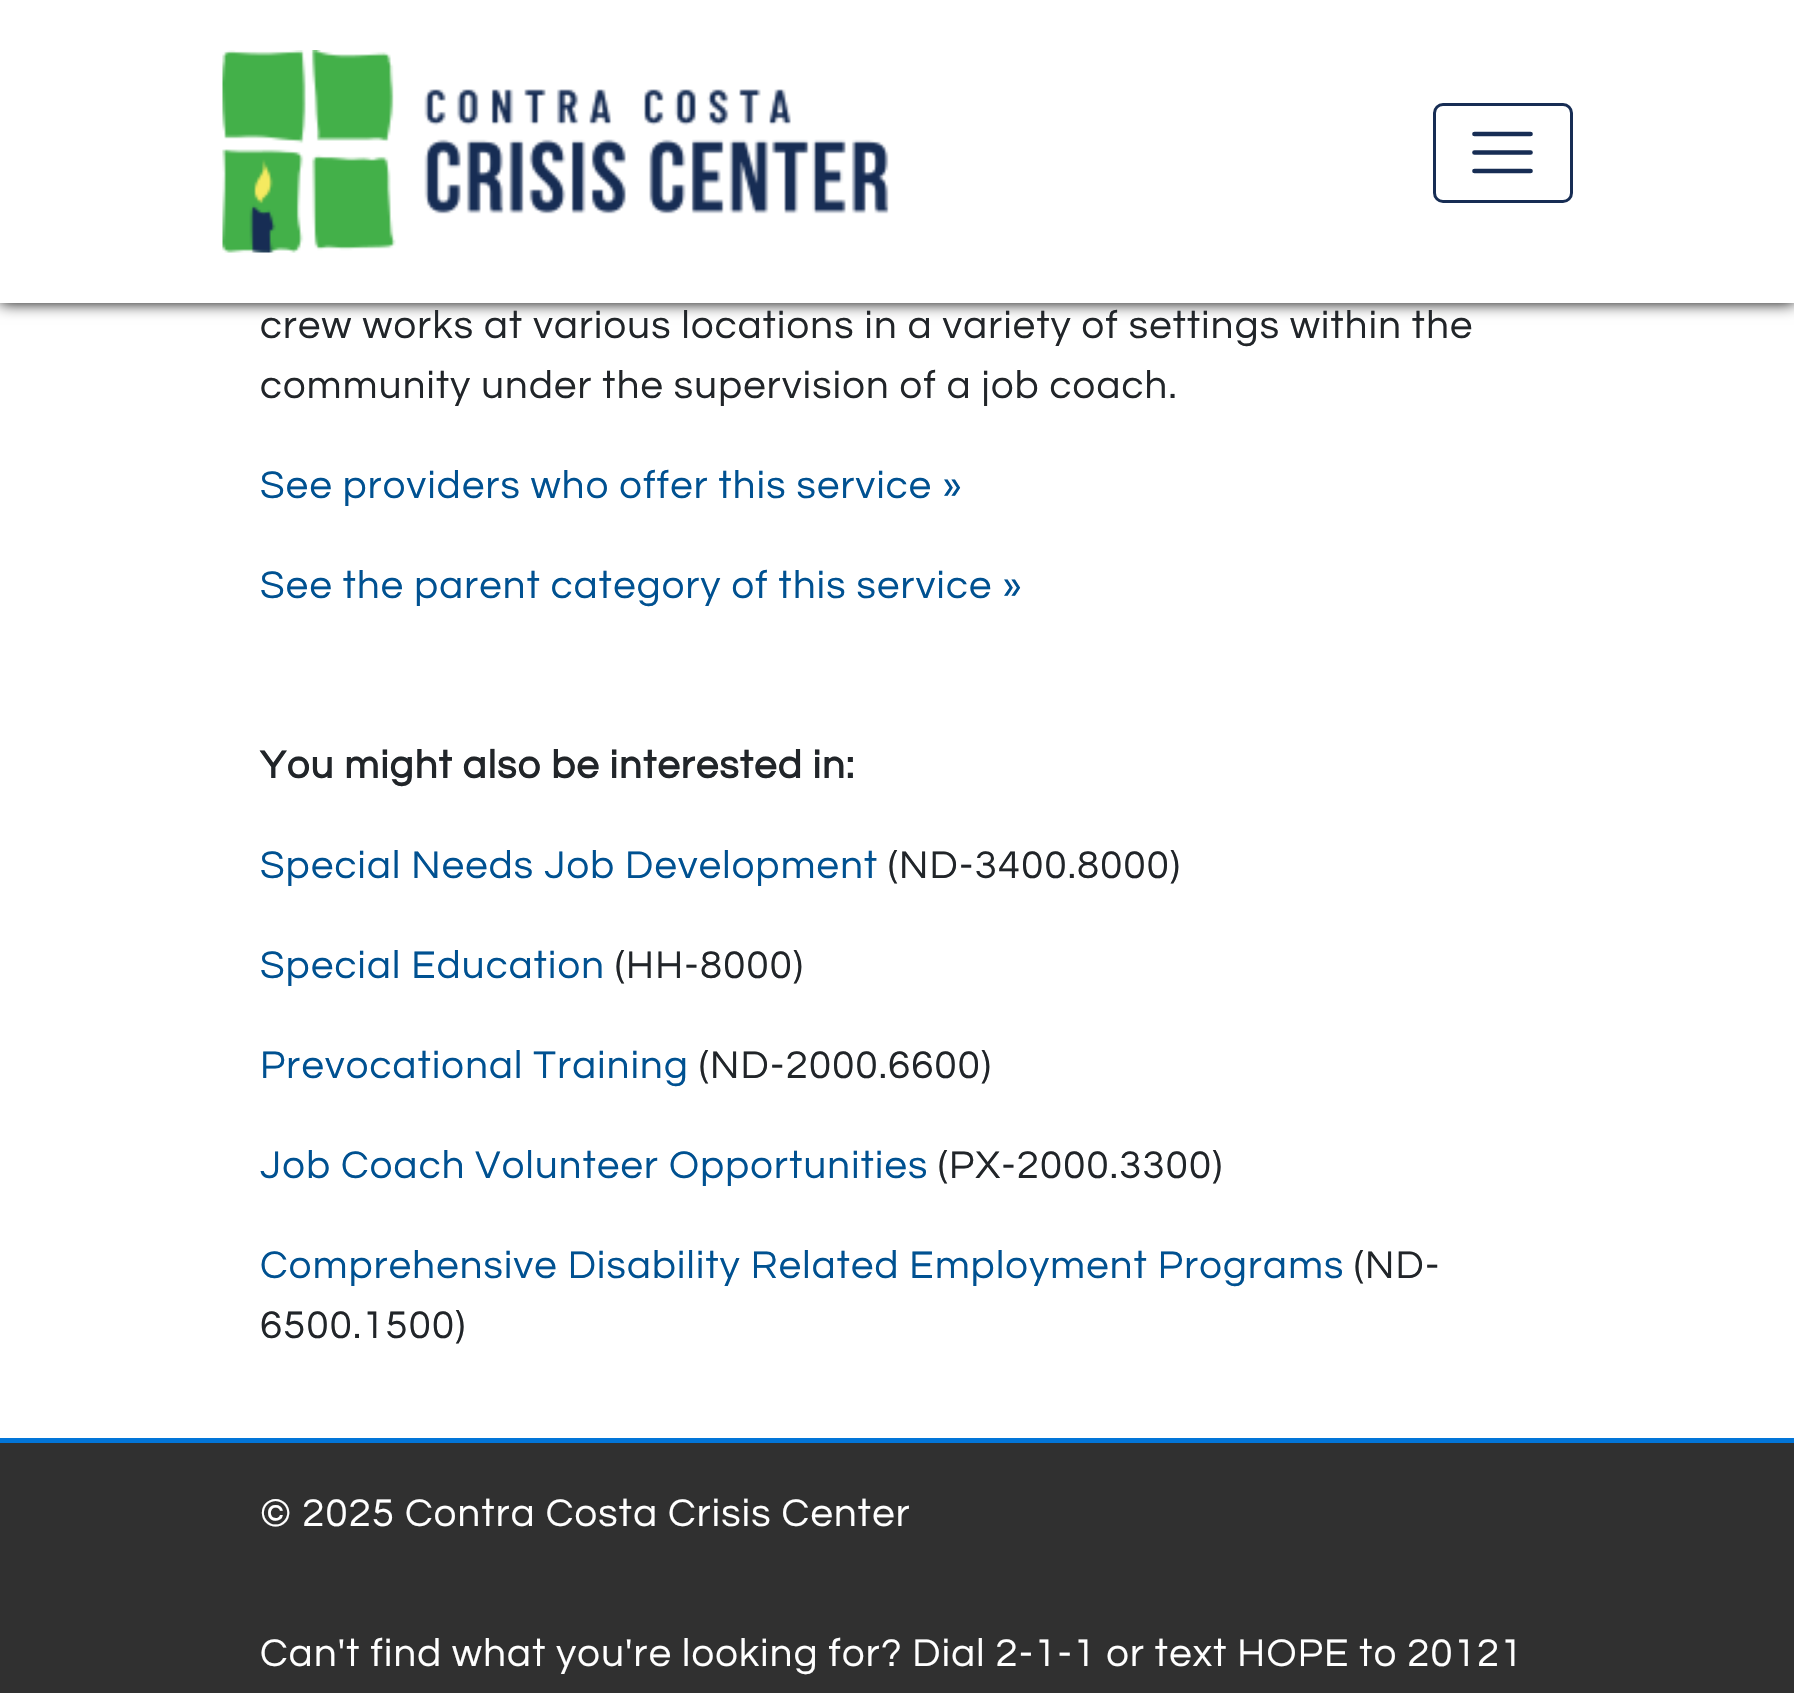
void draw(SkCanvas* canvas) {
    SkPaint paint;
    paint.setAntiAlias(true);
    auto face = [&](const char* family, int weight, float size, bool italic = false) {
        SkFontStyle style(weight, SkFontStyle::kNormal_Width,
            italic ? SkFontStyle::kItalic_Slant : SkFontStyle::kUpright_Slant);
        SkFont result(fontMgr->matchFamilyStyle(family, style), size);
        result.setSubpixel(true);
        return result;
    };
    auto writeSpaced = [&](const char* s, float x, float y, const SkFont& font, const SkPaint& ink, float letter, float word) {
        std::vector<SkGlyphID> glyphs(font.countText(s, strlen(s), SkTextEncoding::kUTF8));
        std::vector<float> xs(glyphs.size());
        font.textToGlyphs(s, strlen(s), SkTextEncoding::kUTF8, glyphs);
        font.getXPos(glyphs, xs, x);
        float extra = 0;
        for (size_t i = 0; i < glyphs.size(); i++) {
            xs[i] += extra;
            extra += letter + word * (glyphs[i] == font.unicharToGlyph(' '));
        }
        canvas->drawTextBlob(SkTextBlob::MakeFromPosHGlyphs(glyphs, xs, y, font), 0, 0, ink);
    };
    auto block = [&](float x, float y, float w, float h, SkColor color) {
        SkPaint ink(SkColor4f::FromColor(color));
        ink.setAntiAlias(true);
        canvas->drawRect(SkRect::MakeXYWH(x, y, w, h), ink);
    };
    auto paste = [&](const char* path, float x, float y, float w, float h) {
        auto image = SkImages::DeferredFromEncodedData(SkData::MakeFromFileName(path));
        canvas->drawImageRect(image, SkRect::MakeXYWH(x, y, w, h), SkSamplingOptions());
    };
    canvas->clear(SK_ColorWHITE);
    paint.setColor(SK_ColorBLACK);
    paint.setMaskFilter(SkMaskFilter::MakeBlur(kNormal_SkBlurStyle, 7.5f));
    canvas->drawRect(SkRect::MakeXYWH(0, 0, 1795, 303), paint);
    paint.setMaskFilter(nullptr);
    block(0, 0, 1794, 303, SK_ColorWHITE);
    paste("pic1.png", 222, 50, 667, 203);
    paint.setStyle(SkPaint::kStroke_Style);
    paint.setStrokeWidth(3);
    paint.setColor(SkColorSetRGB(23, 45, 84));
    canvas->drawRoundRect(SkRect::MakeXYWH(1434.5f, 104.5f, 137, 97), 8.5f, 8.5f, paint);
    paint.setStrokeWidth(4.7f);
    paint.setStrokeCap(SkPaint::kRound_Cap);
    canvas->drawPath(SkPathBuilder().moveTo(1474.5f, 134).lineTo(1530.5f, 134).moveTo(1474.5f, 152.5f).lineTo(1530.5f, 152.5f).moveTo(1474.5f, 171).lineTo(1530.5f, 171).detach(), paint);
    auto kFont1 = face("Questrial", 400, 40);
    paint.setStyle(SkPaint::kFill_Style);
    paint.setColor(SkColorSetRGB(33, 37, 41));
    writeSpaced("crew works at various locations in a variety of settings within the", 260, 338, kFont1, paint, 1.25f, 0);
    writeSpaced("community under the supervision of a job coach.", 260, 398, kFont1, paint, 1.25f, 0);
    paint.setColor(SkColorSetRGB(0, 81, 145));
    writeSpaced("See providers who offer this service »", 260, 498, kFont1, paint, 1.25f, 0);
    writeSpaced("See the parent category of this service »", 260, 598, kFont1, paint, 1.25f, 0);
    auto kFont2 = face("Questrial", 700, 40);
    paint.setColor(SkColorSetRGB(33, 37, 41));
    writeSpaced("You might also be interested in:", 260, 778, kFont2, paint, 1.25f, 0);
    paint.setColor(SkColorSetRGB(0, 81, 145));
    writeSpaced("Special Needs Job Development", 260, 878, kFont1, paint, 1.25f, 0);
    paint.setColor(SkColorSetRGB(33, 37, 41));
    writeSpaced("(ND-3400.8000)", 888, 878, kFont1, paint, 1.25f, 0);
    paint.setColor(SkColorSetRGB(0, 81, 145));
    writeSpaced("Special Education", 260, 978, kFont1, paint, 1.25f, 0);
    paint.setColor(SkColorSetRGB(33, 37, 41));
    writeSpaced("(HH-8000)", 615, 978, kFont1, paint, 1.25f, 0);
    paint.setColor(SkColorSetRGB(0, 81, 145));
    writeSpaced("Prevocational Training", 260, 1078, kFont1, paint, 1.25f, 0);
    paint.setColor(SkColorSetRGB(33, 37, 41));
    writeSpaced("(ND-2000.6600)", 699, 1078, kFont1, paint, 1.25f, 0);
    paint.setColor(SkColorSetRGB(0, 81, 145));
    writeSpaced("Job Coach Volunteer Opportunities", 260, 1178, kFont1, paint, 1.25f, 0);
    paint.setColor(SkColorSetRGB(33, 37, 41));
    writeSpaced("(PX-2000.3300)", 938, 1178, kFont1, paint, 1.25f, 0);
    paint.setColor(SkColorSetRGB(0, 81, 145));
    writeSpaced("Comprehensive Disability Related Employment Programs", 260, 1278, kFont1, paint, 1.25f, 0);
    paint.setColor(SkColorSetRGB(33, 37, 41));
    writeSpaced("(ND-", 1354, 1278, kFont1, paint, 1.25f, 0);
    writeSpaced("6500.1500)", 260, 1338, kFont1, paint, 1.25f, 0);
    block(0, 1443, 1794, 250, SkColorSetRGB(48, 48, 48));
    block(0, 1438, 1794, 5, SkColorSetRGB(2, 117, 216));
    paint.setColor(SK_ColorWHITE);
    writeSpaced("© 2025 Contra Costa Crisis Center", 260, 1526, kFont1, paint, 1.25f, 0);
    writeSpaced("Can't find what you're looking for? Dial 2-1-1 or text HOPE to 20121", 260, 1666, kFont1, paint, 1.25f, 0);
}
